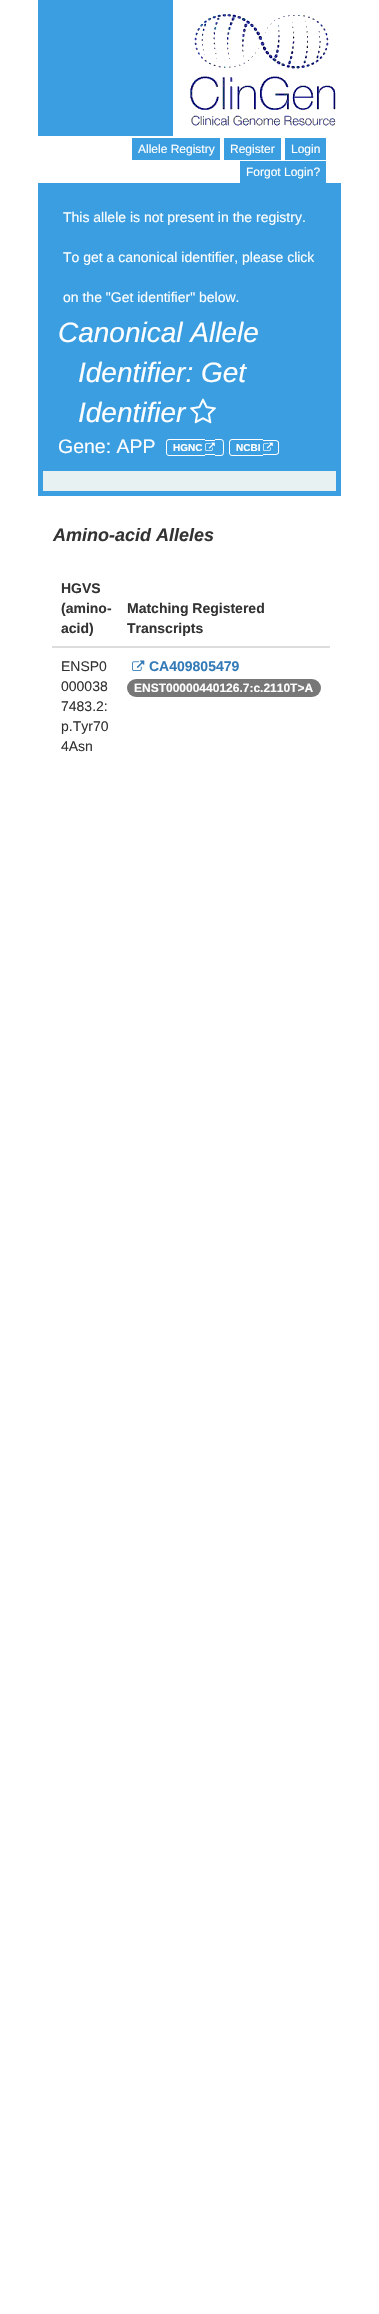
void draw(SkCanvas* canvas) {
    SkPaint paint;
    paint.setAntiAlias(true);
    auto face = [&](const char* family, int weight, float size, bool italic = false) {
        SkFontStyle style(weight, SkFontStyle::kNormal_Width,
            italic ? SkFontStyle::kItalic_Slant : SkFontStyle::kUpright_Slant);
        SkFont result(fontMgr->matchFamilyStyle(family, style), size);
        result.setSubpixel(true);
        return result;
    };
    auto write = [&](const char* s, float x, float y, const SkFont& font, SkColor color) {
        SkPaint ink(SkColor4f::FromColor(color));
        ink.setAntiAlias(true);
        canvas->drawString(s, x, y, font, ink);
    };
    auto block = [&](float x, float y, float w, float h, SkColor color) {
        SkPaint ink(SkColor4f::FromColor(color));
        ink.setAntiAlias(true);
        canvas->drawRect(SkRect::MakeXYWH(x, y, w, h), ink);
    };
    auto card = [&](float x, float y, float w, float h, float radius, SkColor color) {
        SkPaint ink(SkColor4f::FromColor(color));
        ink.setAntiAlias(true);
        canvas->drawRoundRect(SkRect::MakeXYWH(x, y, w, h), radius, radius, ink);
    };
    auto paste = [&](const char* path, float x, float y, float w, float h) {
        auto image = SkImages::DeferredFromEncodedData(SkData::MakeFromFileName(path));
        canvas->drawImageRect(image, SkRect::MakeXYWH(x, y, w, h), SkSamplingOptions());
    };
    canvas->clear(SK_ColorWHITE);
    block(38, 0, 135, 136, SkColorSetRGB(58, 158, 224));
    paste("pic1.png", 173, 0, 168, 136);
    block(132, 138, 88, 22, SkColorSetRGB(58, 158, 224));
    auto kFont1 = face("Liberation Sans", 400, 12);
    write("Allele Registry", 138, 153, kFont1, SK_ColorWHITE);
    block(224, 138, 57, 22, SkColorSetRGB(58, 158, 224));
    write("Register", 230, 153, kFont1, SK_ColorWHITE);
    block(285, 138, 41, 22, SkColorSetRGB(58, 158, 224));
    write("Login", 291, 153, kFont1, SK_ColorWHITE);
    block(240, 161, 86, 22, SkColorSetRGB(58, 158, 224));
    write("Forgot Login?", 246, 176, kFont1, SK_ColorWHITE);
    block(38, 183, 303, 288, SkColorSetRGB(58, 158, 224));
    auto kFont2 = face("Liberation Sans", 400, 14);
    write("This allele is not present in the registry.", 63, 222, kFont2, SK_ColorWHITE);
    write("To get a canonical identifier, please click", 63, 262, kFont2, SK_ColorWHITE);
    write("on the \"Get identifier\" below.", 63, 302, kFont2, SK_ColorWHITE);
    auto kFont3 = face("Liberation Sans", 400, 28, true);
    write("Canonical Allele", 58, 342, kFont3, SK_ColorWHITE);
    write("Identifier: Get", 78, 382, kFont3, SK_ColorWHITE);
    write("Identifier", 78, 422, kFont3, SK_ColorWHITE);
    paste("pic2.png", 190, 398, 26, 26);
    auto kFont4 = face("Liberation Sans", 400, 19.5f);
    write("Gene: APP", 58, 453, kFont4, SK_ColorWHITE);
    paint.setColor(SK_ColorWHITE);
    canvas->drawPath(SkPathBuilder(SkPathFillType::kEvenOdd).moveTo(169, 439).lineTo(205, 439).lineTo(205, 456).lineTo(169, 456).cubicTo(167.5f, 456, 166, 454.5f, 166, 453).lineTo(166, 442).cubicTo(166, 440.5f, 167.5f, 439, 169, 439).close().moveTo(169, 440).lineTo(205, 440).lineTo(205, 455).lineTo(169, 455).cubicTo(168, 455, 167, 454, 167, 453).lineTo(167, 442).cubicTo(167, 441, 168, 440, 169, 440).close().detach(), paint);
    auto kFont5 = face("Liberation Sans", 700, 10);
    write("HGNC", 173, 451, kFont5, SK_ColorWHITE);
    block(205, 440, 10, 1, SK_ColorWHITE);
    block(205, 454, 10, 1, SK_ColorWHITE);
    canvas->drawPath(SkPathBuilder(SkPathFillType::kEvenOdd).moveTo(215, 439).cubicTo(224, 439, 224, 438, 224, 447.5f).cubicTo(224, 457, 224, 456, 215, 456).close().moveTo(215, 440).cubicTo(223.5f, 440, 223, 438.5f, 223, 447.5f).cubicTo(223, 456.5f, 223.5f, 455, 215, 455).close().detach(), paint);
    paste("pic3.png", 205, 442, 10, 9);
    canvas->drawPath(SkPathBuilder(SkPathFillType::kEvenOdd).moveTo(232, 439).lineTo(263, 439).lineTo(263, 456).lineTo(232, 456).cubicTo(230.5f, 456, 229, 454.5f, 229, 453).lineTo(229, 442).cubicTo(229, 440.5f, 230.5f, 439, 232, 439).close().moveTo(232, 440).lineTo(263, 440).lineTo(263, 455).lineTo(232, 455).cubicTo(231, 455, 230, 454, 230, 453).lineTo(230, 442).cubicTo(230, 441, 231, 440, 232, 440).close().moveTo(263, 440).lineTo(274, 440).cubicTo(280, 440, 279, 442, 279, 447.5f).cubicTo(279, 453, 280, 455, 274, 455).lineTo(263, 455).close().moveTo(263, 441).lineTo(274, 441).cubicTo(279, 441, 278, 442.5f, 278, 447.5f).cubicTo(278, 452.5f, 279, 454, 274, 454).lineTo(263, 454).close().detach(), paint);
    write("NCBI", 236, 451, kFont5, SK_ColorWHITE);
    paste("pic3.png", 263, 442, 10, 9);
    block(43, 471, 293, 20, SkColorSetRGB(232, 241, 242));
    block(336, 471, 5, 25, SkColorSetRGB(58, 158, 224));
    block(38, 491, 303, 5, SkColorSetRGB(58, 158, 224));
    block(38, 471, 5, 25, SkColorSetRGB(58, 158, 224));
    auto kFont6 = face("Liberation Sans", 700, 18, true);
    write("Amino-acid Alleles", 53, 541, kFont6, SkColorSetRGB(51, 51, 51));
    auto kFont7 = face("Liberation Sans", 700, 14);
    write("HGVS", 61, 593, kFont7, SkColorSetRGB(51, 51, 51));
    write("(amino-", 61, 613, kFont7, SkColorSetRGB(51, 51, 51));
    write("acid)", 61, 633, kFont7, SkColorSetRGB(51, 51, 51));
    block(52, 646, 278, 2, SkColorSetRGB(221, 221, 221));
    write("Matching Registered", 127, 613, kFont7, SkColorSetRGB(51, 51, 51));
    write("Transcripts", 127, 633, kFont7, SkColorSetRGB(51, 51, 51));
    write("ENSP0", 61, 671, kFont2, SkColorSetRGB(51, 51, 51));
    write("000038", 61, 691, kFont2, SkColorSetRGB(51, 51, 51));
    write("7483.2:", 61, 711, kFont2, SkColorSetRGB(51, 51, 51));
    write("p.Tyr70", 61, 731, kFont2, SkColorSetRGB(51, 51, 51));
    write("4Asn", 61, 751, kFont2, SkColorSetRGB(51, 51, 51));
    paste("pic4.png", 132, 660, 13, 11);
    write("CA409805479", 149, 671, kFont7, SkColorSetRGB(51, 122, 183));
    card(127, 679, 194, 18, 9, SkColorSetRGB(119, 119, 119));
    auto kFont8 = face("Liberation Sans", 700, 12);
    write("ENST00000440126.7:c.2110T>A", 134, 692, kFont8, SK_ColorWHITE);
}
